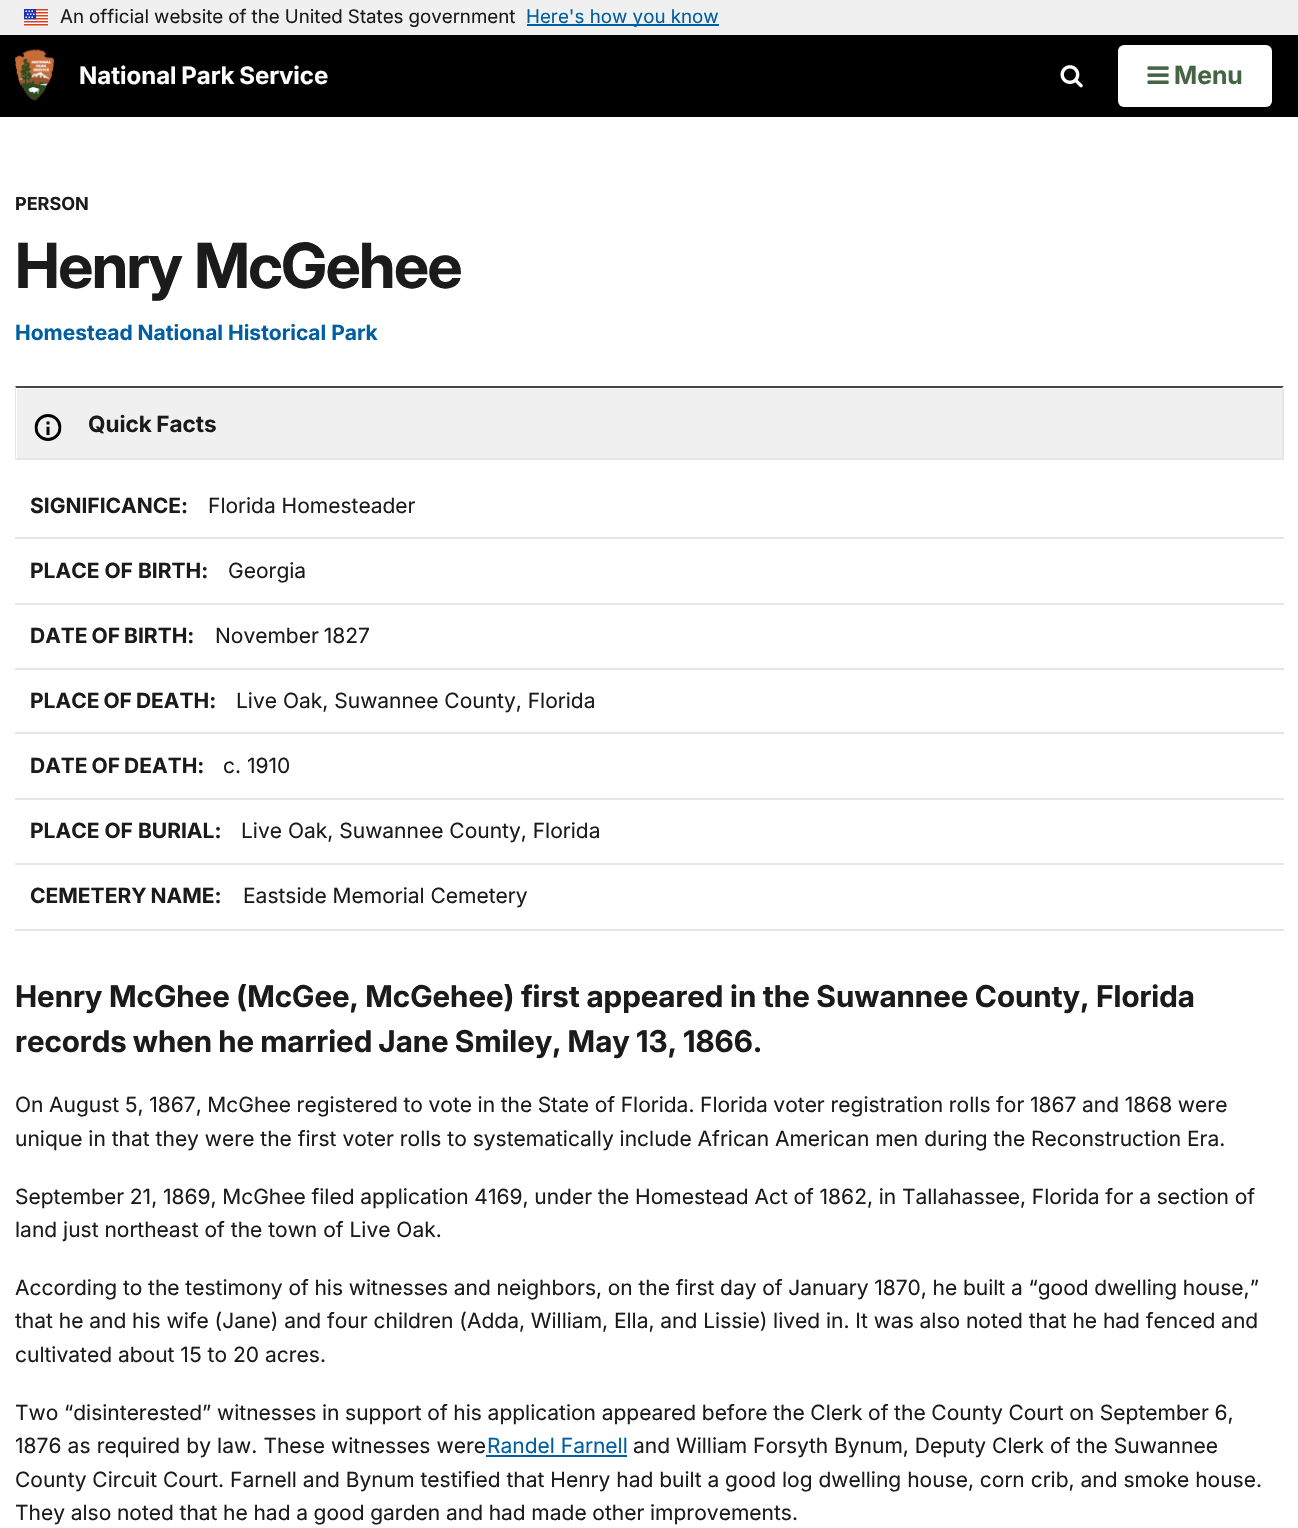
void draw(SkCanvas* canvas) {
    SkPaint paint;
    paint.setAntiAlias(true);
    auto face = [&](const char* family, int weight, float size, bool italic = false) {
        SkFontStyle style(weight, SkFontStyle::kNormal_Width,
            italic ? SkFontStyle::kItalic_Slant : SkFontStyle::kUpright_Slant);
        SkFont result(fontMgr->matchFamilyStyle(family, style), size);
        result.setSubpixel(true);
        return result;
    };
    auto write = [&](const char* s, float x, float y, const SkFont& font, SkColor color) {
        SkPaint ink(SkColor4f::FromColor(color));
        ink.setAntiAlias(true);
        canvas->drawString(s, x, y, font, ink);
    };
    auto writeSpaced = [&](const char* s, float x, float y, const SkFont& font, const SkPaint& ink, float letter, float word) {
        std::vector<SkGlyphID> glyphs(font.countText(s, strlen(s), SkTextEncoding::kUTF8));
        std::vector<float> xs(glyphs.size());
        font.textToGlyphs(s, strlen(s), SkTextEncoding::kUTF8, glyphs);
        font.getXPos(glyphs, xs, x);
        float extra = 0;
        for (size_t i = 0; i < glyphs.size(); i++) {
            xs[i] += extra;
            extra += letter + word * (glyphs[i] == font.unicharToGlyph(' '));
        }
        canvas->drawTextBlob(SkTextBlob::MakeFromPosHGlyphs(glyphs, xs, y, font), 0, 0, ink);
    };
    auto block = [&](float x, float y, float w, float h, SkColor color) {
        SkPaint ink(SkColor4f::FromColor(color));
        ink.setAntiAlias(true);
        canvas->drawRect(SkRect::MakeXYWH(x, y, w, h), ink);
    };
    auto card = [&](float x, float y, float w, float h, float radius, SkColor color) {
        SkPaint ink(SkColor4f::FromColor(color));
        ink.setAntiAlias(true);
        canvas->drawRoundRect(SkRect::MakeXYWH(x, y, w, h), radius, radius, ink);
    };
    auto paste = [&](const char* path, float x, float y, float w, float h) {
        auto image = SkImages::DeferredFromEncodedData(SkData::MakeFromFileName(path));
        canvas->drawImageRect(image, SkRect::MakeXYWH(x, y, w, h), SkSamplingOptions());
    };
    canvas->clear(SK_ColorWHITE);
    block(0, 0, 1298, 35, SkColorSetRGB(240, 240, 240));
    paste("pic1.png", 24, 9, 24, 17);
    auto kFont1 = face("Inter", 400, 18.75f);
    paint.setColor(SkColorSetRGB(27, 27, 27));
    writeSpaced("An official website of the United States government", 60, 23, kFont1, paint, 0, -0.25f);
    block(527, 24, 192, 2, SkColorSetRGB(0, 94, 162));
    write("Here's how you know", 526, 23, kFont1, SkColorSetRGB(0, 94, 162));
    block(0, 35, 1298, 82, SK_ColorBLACK);
    paste("pic2.png", 15, 49, 39, 52);
    auto kFont2 = face("Inter", 700, 24);
    paint.setColor(SK_ColorWHITE);
    writeSpaced("National Park Service", 79, 84, kFont2, paint, 0, -1);
    paste("pic3.png", 1060, 65, 23, 23);
    card(1118, 45, 154, 62, 6, SK_ColorWHITE);
    paste("pic4.png", 1147, 66, 22, 18);
    auto kFont3 = face("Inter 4", 700, 25);
    write("Menu", 1174, 84, kFont3, SkColorSetRGB(68, 100, 67));
    auto kFont4 = face("Inter", 700, 18);
    write("PERSON", 15, 210, kFont4, SkColorSetRGB(27, 27, 27));
    auto kFont5 = face("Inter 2", 700, 62.25f);
    paint.setColor(SkColorSetRGB(27, 27, 27));
    writeSpaced("Henry McGehee", 15, 288, kFont5, paint, -1.5f, 1);
    auto kFont6 = face("Inter", 700, 21);
    write("Homestead National Historical Park", 15, 340, kFont6, SkColorSetRGB(0, 94, 162));
    block(17, 389, 1265, 69, SkColorSetRGB(240, 240, 240));
    paint.setColor(SkColorSetRGB(69, 69, 69));
    canvas->drawPath(SkPathBuilder().moveTo(15, 386).lineTo(1284, 386).lineTo(1282, 388).lineTo(16, 388).close().detach(), paint);
    paint.setColor(SkColorSetRGB(230, 230, 230));
    canvas->drawPath(SkPathBuilder().moveTo(1284, 386).lineTo(1284, 459).lineTo(1282, 458).lineTo(1282, 388).close().detach(), paint);
    block(15, 458, 1269, 2, SkColorSetRGB(230, 230, 230));
    canvas->drawPath(SkPathBuilder().moveTo(15, 459).lineTo(15, 386).lineTo(16, 388).lineTo(16, 458).close().detach(), paint);
    paste("pic5.png", 34, 414, 28, 27);
    auto kFont7 = face("Inter", 700, 22.5f);
    paint.setColor(SkColorSetRGB(27, 27, 27));
    writeSpaced("Quick Facts", 88, 432, kFont7, paint, 0, -1);
    block(15, 537, 1269, 2, SkColorSetRGB(230, 230, 230));
    write("SIGNIFICANCE:", 30, 513, kFont6, SkColorSetRGB(27, 27, 27));
    auto kFont8 = face("Inter", 400, 21);
    write("Florida Homesteader", 208, 513, kFont8, SkColorSetRGB(27, 27, 27));
    block(15, 603, 1269, 2, SkColorSetRGB(230, 230, 230));
    write("PLACE OF BIRTH:", 30, 578, kFont6, SkColorSetRGB(27, 27, 27));
    write("Georgia", 228, 578, kFont8, SkColorSetRGB(27, 27, 27));
    block(15, 668, 1269, 2, SkColorSetRGB(230, 230, 230));
    writeSpaced("DATE OF BIRTH:", 30, 643, kFont6, paint, 0, -1);
    writeSpaced("November 1827", 215, 643, kFont8, paint, 0, -1);
    block(15, 732, 1269, 2, SkColorSetRGB(230, 230, 230));
    writeSpaced("PLACE OF DEATH:", 30, 708, kFont6, paint, 0, -1);
    write("Live Oak, Suwannee County, Florida", 236, 708, kFont8, SkColorSetRGB(27, 27, 27));
    block(15, 798, 1269, 2, SkColorSetRGB(230, 230, 230));
    writeSpaced("DATE OF DEATH:", 30, 773, kFont6, paint, 0, -1);
    write("c. 1910", 223, 773, kFont8, SkColorSetRGB(27, 27, 27));
    block(15, 863, 1269, 2, SkColorSetRGB(230, 230, 230));
    write("PLACE OF BURIAL:", 30, 838, kFont6, SkColorSetRGB(27, 27, 27));
    write("Live Oak, Suwannee County, Florida", 241, 838, kFont8, SkColorSetRGB(27, 27, 27));
    block(15, 929, 1269, 2, SkColorSetRGB(230, 230, 230));
    writeSpaced("CEMETERY NAME:", 30, 903, kFont6, paint, 0, -1);
    write("Eastside Memorial Cemetery", 243, 903, kFont8, SkColorSetRGB(27, 27, 27));
    auto kFont9 = face("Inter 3", 700, 30);
    writeSpaced("Henry McGhee (McGee, McGehee) first appeared in the Suwannee County, Florida", 15, 1007, kFont9, paint, 0, -0.25f);
    writeSpaced("records when he married Jane Smiley, May 13, 1866.", 15, 1052, kFont9, paint, 0, -0.75f);
    writeSpaced("On August 5, 1867, McGhee registered to vote in the State of Florida. Florida voter registration rolls for 1867 and 1868 were", 15, 1112, kFont8, paint, 0, -0.3f);
    write("unique in that they were the first voter rolls to systematically include African American men during the Reconstruction Era.", 15, 1146, kFont8, SkColorSetRGB(27, 27, 27));
    writeSpaced("September 21, 1869, McGhee filed application 4169, under the Homestead Act of 1862, in Tallahassee, Florida for a section of", 15, 1204, kFont8, paint, 0, -0.2f);
    write("land just northeast of the town of Live Oak.", 15, 1237, kFont8, SkColorSetRGB(27, 27, 27));
    writeSpaced("According to the testimony of his witnesses and neighbors, on the first day of January 1870, he built a “good dwelling house,”", 15, 1295, kFont8, paint, 0, -0.2f);
    writeSpaced("that he and his wife (Jane) and four children (Adda, William, Ella, and Lissie) lived in. It was also noted that he had fenced and", 15, 1328, kFont8, paint, 0, -0.1f);
    write("cultivated about 15 to 20 acres.", 15, 1362, kFont8, SkColorSetRGB(27, 27, 27));
    writeSpaced("Two “disinterested” witnesses in support of his application appeared before the Clerk of the County Court on September 6,", 15, 1420, kFont8, paint, 0, -0.25f);
    writeSpaced("1876 as required by law. These witnesses were", 15, 1453, kFont8, paint, 0, 0.25f);
    write("Randel Farnell", 487, 1453, kFont8, SkColorSetRGB(0, 94, 162));
    block(486, 1455, 141, 2, SkColorSetRGB(0, 94, 162));
    write("and William Forsyth Bynum, Deputy Clerk of the Suwannee", 633, 1453, kFont8, SkColorSetRGB(27, 27, 27));
    write("County Circuit Court. Farnell and Bynum testified that Henry had built a good log dwelling house, corn crib, and smoke house.", 15, 1487, kFont8, SkColorSetRGB(27, 27, 27));
    writeSpaced("They also noted that he had a good garden and had made other improvements.", 15, 1520, kFont8, paint, 0, -0.25f);
}
